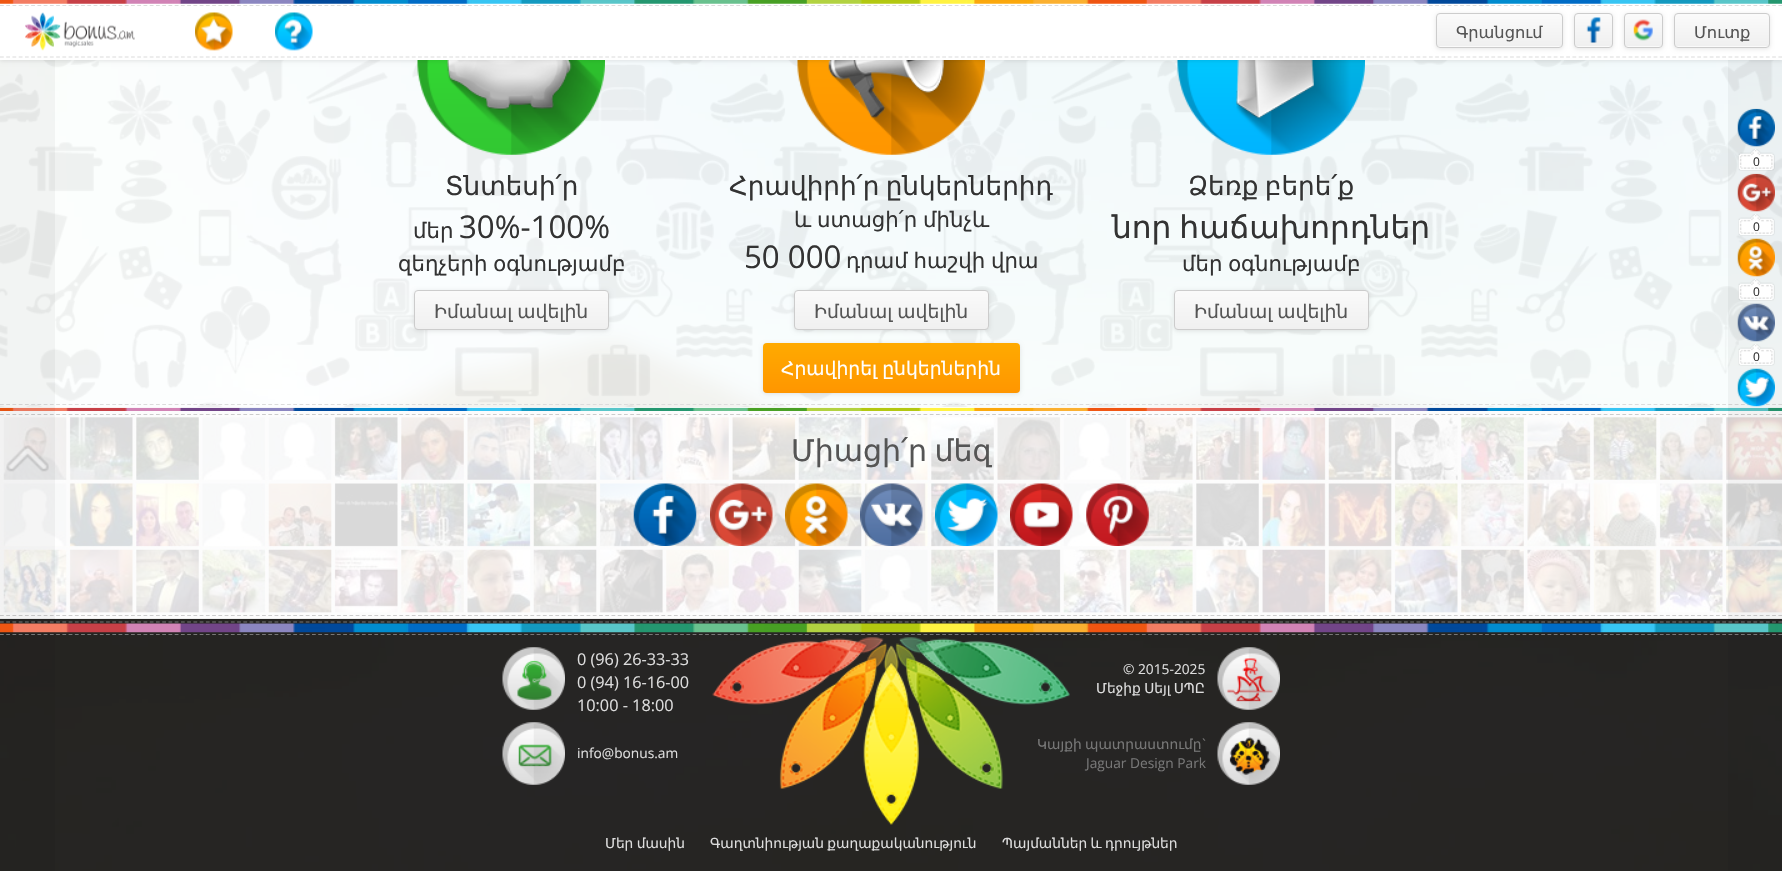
void draw(SkCanvas* canvas) {
    SkPaint paint;
    paint.setAntiAlias(true);
    auto face = [&](const char* family, int weight, float size, bool italic = false) {
        SkFontStyle style(weight, SkFontStyle::kNormal_Width,
            italic ? SkFontStyle::kItalic_Slant : SkFontStyle::kUpright_Slant);
        SkFont result(fontMgr->matchFamilyStyle(family, style), size);
        result.setSubpixel(true);
        return result;
    };
    auto write = [&](const char* s, float x, float y, const SkFont& font, SkColor color) {
        SkPaint ink(SkColor4f::FromColor(color));
        ink.setAntiAlias(true);
        canvas->drawString(s, x, y, font, ink);
    };
    auto writeSpaced = [&](const char* s, float x, float y, const SkFont& font, const SkPaint& ink, float letter, float word) {
        std::vector<SkGlyphID> glyphs(font.countText(s, strlen(s), SkTextEncoding::kUTF8));
        std::vector<float> xs(glyphs.size());
        font.textToGlyphs(s, strlen(s), SkTextEncoding::kUTF8, glyphs);
        font.getXPos(glyphs, xs, x);
        float extra = 0;
        for (size_t i = 0; i < glyphs.size(); i++) {
            xs[i] += extra;
            extra += letter + word * (glyphs[i] == font.unicharToGlyph(' '));
        }
        canvas->drawTextBlob(SkTextBlob::MakeFromPosHGlyphs(glyphs, xs, y, font), 0, 0, ink);
    };
    auto block = [&](float x, float y, float w, float h, SkColor color) {
        SkPaint ink(SkColor4f::FromColor(color));
        ink.setAntiAlias(true);
        canvas->drawRect(SkRect::MakeXYWH(x, y, w, h), ink);
    };
    auto paste = [&](const char* path, float x, float y, float w, float h) {
        auto image = SkImages::DeferredFromEncodedData(SkData::MakeFromFileName(path));
        canvas->drawImageRect(image, SkRect::MakeXYWH(x, y, w, h), SkSamplingOptions());
    };
    canvas->clear(SK_ColorWHITE);
    paste("pic1.png", 0, 60, 1782, 811);
    paste("pic13.png", 0, 407, 1782, 4);
    block(0, 60, 1782, 348, SkColorSetARGB(230, 255, 255, 255));
    paste("pic9.png", 0, 60, 1782, 347);
    paint.setStyle(SkPaint::kStroke_Style);
    paint.setStrokeWidth(1.2f);
    paint.setColor(SkColorSetRGB(220, 220, 220));
    paint.setPathEffect(SkDashPathEffect::Make({{3.75f, 2.49f}}, 0));
    canvas->drawPath(SkPathBuilder().moveTo(0, 404.5f).lineTo(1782.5f, 404.5f).detach(), paint);
    paint.setPathEffect(nullptr);
    block(0, 618, 1782, 1, SkColorSetRGB(238, 238, 238));
    paste("pic14.png", 0, 411, 1782, 207);
    paint.setColor(SkColorSetRGB(204, 204, 204));
    paint.setPathEffect(SkDashPathEffect::Make({{3.75f, 2.49f}}, 0));
    canvas->drawPath(SkPathBuilder().moveTo(0, 414.5f).lineTo(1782.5f, 414.5f).detach(), paint);
    paint.setPathEffect(nullptr);
    paint.setPathEffect(SkDashPathEffect::Make({{3.75f, 2.49f}}, 0));
    canvas->drawPath(SkPathBuilder().moveTo(0, 615.5f).lineTo(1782.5f, 615.5f).detach(), paint);
    paint.setPathEffect(nullptr);
    block(0, 60, 55, 811, SkColorSetARGB(10, 0, 0, 0));
    paste("pic10.png", 417, 60, 188, 95);
    paste("pic11.png", 797, 60, 188, 95);
    paste("pic12.png", 1177, 60, 188, 95);
    block(1728, 60, 54, 811, SkColorSetARGB(10, 0, 0, 0));
    paint.setStyle(SkPaint::kFill_Style);
    paint.setColor(SkColorSetARGB(26, 0, 0, 0));
    paint.setMaskFilter(SkMaskFilter::MakeBlur(kNormal_SkBlurStyle, 2));
    canvas->drawRect(SkRect::MakeXYWH(0, 1, 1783, 60), paint);
    paint.setMaskFilter(nullptr);
    block(0, 3, 1782, 57, SK_ColorWHITE);
    paste("pic2.png", 0, 0, 1782, 4);
    paint.setStyle(SkPaint::kStroke_Style);
    paint.setColor(SkColorSetRGB(220, 220, 220));
    paint.setPathEffect(SkDashPathEffect::Make({{3.75f, 2.49f}}, 0));
    canvas->drawPath(SkPathBuilder().moveTo(0, 5.5f).lineTo(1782.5f, 5.5f).detach(), paint);
    paint.setPathEffect(nullptr);
    paint.setPathEffect(SkDashPathEffect::Make({{3.75f, 2.49f}}, 0));
    canvas->drawPath(SkPathBuilder().moveTo(0, 57).lineTo(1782.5f, 57).detach(), paint);
    paint.setPathEffect(nullptr);
    paste("pic3.png", 25, 12, 110, 39);
    paste("pic4.png", 195, 12, 38, 39);
    paste("pic5.png", 275, 12, 38, 39);
    paint.setStyle(SkPaint::kFill_Style);
    paint.setColor(SkColorSetARGB(26, 0, 0, 0));
    paint.setMaskFilter(SkMaskFilter::MakeBlur(kNormal_SkBlurStyle, 2));
    canvas->drawRoundRect(SkRect::MakeXYWH(1436, 14, 127, 35), 4, 4, paint);
    paint.setMaskFilter(nullptr);
    canvas->save();
    canvas->clipPath(SkPathBuilder().moveTo(1440, 13).lineTo(1559, 13).cubicTo(1561, 13, 1563, 15, 1563, 17).lineTo(1563, 44).cubicTo(1563, 46, 1561, 48, 1559, 48).lineTo(1440, 48).cubicTo(1438, 48, 1436, 46, 1436, 44).lineTo(1436, 17).cubicTo(1436, 15, 1438, 13, 1440, 13).close().detach(), true);
    {
        const SkColor colors[] = {SkColorSetRGB(250, 250, 250), SkColorSetRGB(240, 240, 240)};
        const float stops[] = {0, 1};
        const SkPoint ends[] = {{1499, 14}, {1499, 46}};
        paint.setShader(SkGradientShader::MakeLinear(ends, colors, stops, 2, SkTileMode::kClamp));
        paint.setAlpha(255);
    }
    canvas->drawRect(SkRect::MakeXYWH(1436, 14, 127, 32), paint);
    {
        const SkColor colors[] = {SkColorSetRGB(250, 250, 250), SkColorSetRGB(240, 240, 240)};
        const float stops[] = {0, 1};
        const SkPoint ends[] = {{1499, 46}, {1499, 79}};
        paint.setShader(SkGradientShader::MakeLinear(ends, colors, stops, 2, SkTileMode::kClamp));
        paint.setAlpha(255);
    }
    canvas->drawRect(SkRect::MakeXYWH(1436, 46, 127, 2), paint);
    canvas->restore();
    paint.setStyle(SkPaint::kStroke_Style);
    paint.setStrokeWidth(1);
    paint.setShader(nullptr);
    paint.setColor(SkColorSetRGB(204, 204, 204));
    canvas->drawRoundRect(SkRect::MakeXYWH(1436.5f, 13.5f, 126, 34), 3.5f, 3.5f, paint);
    auto kFont1 = face("DejaVu Sans", 400, 16.25f);
    write("Գրանցում", 1456, 38, kFont1, SkColorSetRGB(85, 85, 85));
    paint.setStyle(SkPaint::kFill_Style);
    paint.setColor(SkColorSetARGB(26, 0, 0, 0));
    paint.setMaskFilter(SkMaskFilter::MakeBlur(kNormal_SkBlurStyle, 2));
    canvas->drawRoundRect(SkRect::MakeXYWH(1574, 14, 39, 35), 4, 4, paint);
    paint.setMaskFilter(nullptr);
    canvas->save();
    canvas->clipPath(SkPathBuilder().moveTo(1578, 13).lineTo(1609, 13).cubicTo(1611, 13, 1613, 15, 1613, 17).lineTo(1613, 44).cubicTo(1613, 46, 1611, 48, 1609, 48).lineTo(1578, 48).cubicTo(1576, 48, 1574, 46, 1574, 44).lineTo(1574, 17).cubicTo(1574, 15, 1576, 13, 1578, 13).close().detach(), true);
    {
        const SkColor colors[] = {SkColorSetRGB(250, 250, 250), SkColorSetRGB(240, 240, 240)};
        const float stops[] = {0, 1};
        const SkPoint ends[] = {{1593, 14}, {1593, 46}};
        paint.setShader(SkGradientShader::MakeLinear(ends, colors, stops, 2, SkTileMode::kClamp));
        paint.setAlpha(255);
    }
    canvas->drawRect(SkRect::MakeXYWH(1574, 14, 39, 32), paint);
    {
        const SkColor colors[] = {SkColorSetRGB(250, 250, 250), SkColorSetRGB(240, 240, 240)};
        const float stops[] = {0, 1};
        const SkPoint ends[] = {{1593, 46}, {1593, 79}};
        paint.setShader(SkGradientShader::MakeLinear(ends, colors, stops, 2, SkTileMode::kClamp));
        paint.setAlpha(255);
    }
    canvas->drawRect(SkRect::MakeXYWH(1574, 46, 39, 2), paint);
    canvas->restore();
    paint.setStyle(SkPaint::kStroke_Style);
    paint.setShader(nullptr);
    paint.setColor(SkColorSetRGB(204, 204, 204));
    canvas->drawRoundRect(SkRect::MakeXYWH(1574.5f, 13.5f, 38, 34), 3.5f, 3.5f, paint);
    paste("pic6.png", 1586, 17, 15, 26);
    paint.setStyle(SkPaint::kFill_Style);
    paint.setColor(SkColorSetARGB(26, 0, 0, 0));
    paint.setMaskFilter(SkMaskFilter::MakeBlur(kNormal_SkBlurStyle, 2));
    canvas->drawRoundRect(SkRect::MakeXYWH(1624, 14, 39, 35), 4, 4, paint);
    paint.setMaskFilter(nullptr);
    canvas->save();
    canvas->clipPath(SkPathBuilder().moveTo(1628, 13).lineTo(1659, 13).cubicTo(1661, 13, 1663, 15, 1663, 17).lineTo(1663, 44).cubicTo(1663, 46, 1661, 48, 1659, 48).lineTo(1628, 48).cubicTo(1626, 48, 1624, 46, 1624, 44).lineTo(1624, 17).cubicTo(1624, 15, 1626, 13, 1628, 13).close().detach(), true);
    {
        const SkColor colors[] = {SkColorSetRGB(250, 250, 250), SkColorSetRGB(240, 240, 240)};
        const float stops[] = {0, 1};
        const SkPoint ends[] = {{1643, 14}, {1643, 46}};
        paint.setShader(SkGradientShader::MakeLinear(ends, colors, stops, 2, SkTileMode::kClamp));
        paint.setAlpha(255);
    }
    canvas->drawRect(SkRect::MakeXYWH(1624, 14, 39, 32), paint);
    {
        const SkColor colors[] = {SkColorSetRGB(250, 250, 250), SkColorSetRGB(240, 240, 240)};
        const float stops[] = {0, 1};
        const SkPoint ends[] = {{1643, 46}, {1643, 79}};
        paint.setShader(SkGradientShader::MakeLinear(ends, colors, stops, 2, SkTileMode::kClamp));
        paint.setAlpha(255);
    }
    canvas->drawRect(SkRect::MakeXYWH(1624, 46, 39, 2), paint);
    canvas->restore();
    paint.setStyle(SkPaint::kStroke_Style);
    paint.setShader(nullptr);
    paint.setColor(SkColorSetRGB(204, 204, 204));
    canvas->drawRoundRect(SkRect::MakeXYWH(1624.5f, 13.5f, 38, 34), 3.5f, 3.5f, paint);
    paste("pic7.png", 1633, 19, 20, 22);
    paint.setStyle(SkPaint::kFill_Style);
    paint.setColor(SkColorSetARGB(26, 0, 0, 0));
    paint.setMaskFilter(SkMaskFilter::MakeBlur(kNormal_SkBlurStyle, 2));
    canvas->drawRoundRect(SkRect::MakeXYWH(1674, 14, 96, 35), 4, 4, paint);
    paint.setMaskFilter(nullptr);
    canvas->save();
    canvas->clipPath(SkPathBuilder().moveTo(1678, 13).lineTo(1766, 13).cubicTo(1768, 13, 1770, 15, 1770, 17).lineTo(1770, 44).cubicTo(1770, 46, 1768, 48, 1766, 48).lineTo(1678, 48).cubicTo(1676, 48, 1674, 46, 1674, 44).lineTo(1674, 17).cubicTo(1674, 15, 1676, 13, 1678, 13).close().detach(), true);
    {
        const SkColor colors[] = {SkColorSetRGB(250, 250, 250), SkColorSetRGB(240, 240, 240)};
        const float stops[] = {0, 1};
        const SkPoint ends[] = {{1722, 14}, {1722, 46}};
        paint.setShader(SkGradientShader::MakeLinear(ends, colors, stops, 2, SkTileMode::kClamp));
        paint.setAlpha(255);
    }
    canvas->drawRect(SkRect::MakeXYWH(1674, 14, 96, 32), paint);
    {
        const SkColor colors[] = {SkColorSetRGB(250, 250, 250), SkColorSetRGB(240, 240, 240)};
        const float stops[] = {0, 1};
        const SkPoint ends[] = {{1722, 46}, {1722, 79}};
        paint.setShader(SkGradientShader::MakeLinear(ends, colors, stops, 2, SkTileMode::kClamp));
        paint.setAlpha(255);
    }
    canvas->drawRect(SkRect::MakeXYWH(1674, 46, 96, 2), paint);
    canvas->restore();
    paint.setStyle(SkPaint::kStroke_Style);
    paint.setShader(nullptr);
    paint.setColor(SkColorSetRGB(204, 204, 204));
    canvas->drawRoundRect(SkRect::MakeXYWH(1674.5f, 13.5f, 95, 34), 3.5f, 3.5f, paint);
    write("Մուտք", 1694, 38, kFont1, SkColorSetRGB(85, 85, 85));
    paste("pic8.png", 6, 445, 43, 27);
    auto kFont2 = face("DejaVu Sans", 400, 26.25f);
    write("Տնտեսի՛ր", 445, 195, kFont2, SkColorSetRGB(51, 51, 51));
    auto kFont3 = face("DejaVu Sans", 400, 21.25f);
    write("մեր", 413, 238, kFont3, SkColorSetRGB(51, 51, 51));
    auto kFont4 = face("Open Sans", 400, 31.25f);
    write("30%-100%", 459, 238, kFont4, SkColorSetRGB(51, 51, 51));
    paint.setStyle(SkPaint::kFill_Style);
    paint.setColor(SkColorSetRGB(51, 51, 51));
    writeSpaced("զեղչերի օգնությամբ", 398, 271, kFont3, paint, 0, -1);
    paint.setColor(SkColorSetARGB(26, 0, 0, 0));
    paint.setMaskFilter(SkMaskFilter::MakeBlur(kNormal_SkBlurStyle, 2));
    canvas->drawRoundRect(SkRect::MakeXYWH(414, 291, 195, 40), 4, 4, paint);
    paint.setMaskFilter(nullptr);
    canvas->save();
    canvas->clipPath(SkPathBuilder().moveTo(418, 290).lineTo(605, 290).cubicTo(607, 290, 609, 292, 609, 294).lineTo(609, 326).cubicTo(609, 328, 607, 330, 605, 330).lineTo(418, 330).cubicTo(416, 330, 414, 328, 414, 326).lineTo(414, 294).cubicTo(414, 292, 416, 290, 418, 290).close().detach(), true);
    {
        const SkColor colors[] = {SkColorSetRGB(250, 250, 250), SkColorSetRGB(240, 240, 240)};
        const float stops[] = {0, 1};
        const SkPoint ends[] = {{511, 291}, {511, 329}};
        paint.setShader(SkGradientShader::MakeLinear(ends, colors, stops, 2, SkTileMode::kClamp));
        paint.setAlpha(255);
    }
    canvas->drawRect(SkRect::MakeXYWH(414, 291, 195, 38), paint);
    canvas->restore();
    paint.setStyle(SkPaint::kStroke_Style);
    paint.setShader(nullptr);
    paint.setColor(SkColorSetRGB(204, 204, 204));
    canvas->drawRoundRect(SkRect::MakeXYWH(414.5f, 290.5f, 194, 39), 3.5f, 3.5f, paint);
    auto kFont5 = face("DejaVu Sans", 400, 18.75f);
    paint.setStyle(SkPaint::kFill_Style);
    paint.setColor(SkColorSetRGB(85, 85, 85));
    writeSpaced("Իմանալ ավելին", 434, 318, kFont5, paint, 0, -1);
    paint.setColor(SkColorSetRGB(51, 51, 51));
    writeSpaced("Հրավիրի՛ր ընկերներիդ", 729, 195, kFont2, paint, 0, -2);
    writeSpaced("և ստացի՛ր մինչև", 794, 227, kFont3, paint, 0, -1);
    write("50 000", 744, 268, kFont4, SkColorSetRGB(51, 51, 51));
    writeSpaced("դրամ հաշվի վրա", 846, 268, kFont3, paint, 0, -1);
    paint.setColor(SkColorSetARGB(26, 0, 0, 0));
    paint.setMaskFilter(SkMaskFilter::MakeBlur(kNormal_SkBlurStyle, 2));
    canvas->drawRoundRect(SkRect::MakeXYWH(794, 291, 195, 40), 4, 4, paint);
    paint.setMaskFilter(nullptr);
    canvas->save();
    canvas->clipPath(SkPathBuilder().moveTo(798, 290).lineTo(985, 290).cubicTo(987, 290, 989, 292, 989, 294).lineTo(989, 326).cubicTo(989, 328, 987, 330, 985, 330).lineTo(798, 330).cubicTo(796, 330, 794, 328, 794, 326).lineTo(794, 294).cubicTo(794, 292, 796, 290, 798, 290).close().detach(), true);
    {
        const SkColor colors[] = {SkColorSetRGB(250, 250, 250), SkColorSetRGB(240, 240, 240)};
        const float stops[] = {0, 1};
        const SkPoint ends[] = {{891, 291}, {891, 329}};
        paint.setShader(SkGradientShader::MakeLinear(ends, colors, stops, 2, SkTileMode::kClamp));
        paint.setAlpha(255);
    }
    canvas->drawRect(SkRect::MakeXYWH(794, 291, 195, 38), paint);
    canvas->restore();
    paint.setStyle(SkPaint::kStroke_Style);
    paint.setShader(nullptr);
    paint.setColor(SkColorSetRGB(204, 204, 204));
    canvas->drawRoundRect(SkRect::MakeXYWH(794.5f, 290.5f, 194, 39), 3.5f, 3.5f, paint);
    paint.setStyle(SkPaint::kFill_Style);
    paint.setColor(SkColorSetRGB(85, 85, 85));
    writeSpaced("Իմանալ ավելին", 814, 318, kFont5, paint, 0, -1);
    paint.setColor(SkColorSetARGB(26, 0, 0, 0));
    paint.setMaskFilter(SkMaskFilter::MakeBlur(kNormal_SkBlurStyle, 2));
    canvas->drawRoundRect(SkRect::MakeXYWH(763, 344, 257, 50), 4, 4, paint);
    paint.setMaskFilter(nullptr);
    {
        const SkColor colors[] = {SkColorSetRGB(255, 170, 0), SkColorSetRGB(255, 150, 0)};
        const float stops[] = {0, 1};
        const SkPoint ends[] = {{891, 343}, {891, 393}};
        paint.setShader(SkGradientShader::MakeLinear(ends, colors, stops, 2, SkTileMode::kClamp));
        paint.setAlpha(255);
    }
    canvas->drawRoundRect(SkRect::MakeXYWH(763, 343, 257, 50), 4, 4, paint);
    paint.setShader(nullptr);
    paint.setColor(SK_ColorWHITE);
    writeSpaced("Հրավիրել ընկերներին", 781, 375, kFont5, paint, 0, -1);
    paint.setColor(SkColorSetRGB(51, 51, 51));
    writeSpaced("Ձեռք բերե՛ք", 1188, 195, kFont2, paint, 0, -2);
    auto kFont6 = face("DejaVu Sans", 400, 31.25f);
    writeSpaced("նոր հաճախորդներ", 1112, 238, kFont6, paint, 0, -2);
    writeSpaced("մեր օգնությամբ", 1182, 271, kFont3, paint, 0, -1);
    paint.setColor(SkColorSetARGB(26, 0, 0, 0));
    paint.setMaskFilter(SkMaskFilter::MakeBlur(kNormal_SkBlurStyle, 2));
    canvas->drawRoundRect(SkRect::MakeXYWH(1174, 291, 195, 40), 4, 4, paint);
    paint.setMaskFilter(nullptr);
    canvas->save();
    canvas->clipPath(SkPathBuilder().moveTo(1178, 290).lineTo(1365, 290).cubicTo(1367, 290, 1369, 292, 1369, 294).lineTo(1369, 326).cubicTo(1369, 328, 1367, 330, 1365, 330).lineTo(1178, 330).cubicTo(1176, 330, 1174, 328, 1174, 326).lineTo(1174, 294).cubicTo(1174, 292, 1176, 290, 1178, 290).close().detach(), true);
    {
        const SkColor colors[] = {SkColorSetRGB(250, 250, 250), SkColorSetRGB(240, 240, 240)};
        const float stops[] = {0, 1};
        const SkPoint ends[] = {{1271, 291}, {1271, 329}};
        paint.setShader(SkGradientShader::MakeLinear(ends, colors, stops, 2, SkTileMode::kClamp));
        paint.setAlpha(255);
    }
    canvas->drawRect(SkRect::MakeXYWH(1174, 291, 195, 38), paint);
    canvas->restore();
    paint.setStyle(SkPaint::kStroke_Style);
    paint.setShader(nullptr);
    paint.setColor(SkColorSetRGB(204, 204, 204));
    canvas->drawRoundRect(SkRect::MakeXYWH(1174.5f, 290.5f, 194, 39), 3.5f, 3.5f, paint);
    paint.setStyle(SkPaint::kFill_Style);
    paint.setColor(SkColorSetRGB(85, 85, 85));
    writeSpaced("Իմանալ ավելին", 1194, 318, kFont5, paint, 0, -1);
    auto kFont7 = face("DejaVu Sans", 400, 30);
    writeSpaced("Միացի՛ր մեզ", 791, 461, kFont7, paint, 0, -2);
    paste("pic15.png", 633, 483, 64, 63);
    paste("pic16.png", 710, 483, 63, 63);
    paste("pic17.png", 785, 483, 63, 63);
    paste("pic18.png", 860, 483, 63, 63);
    paste("pic19.png", 935, 483, 63, 63);
    paste("pic20.png", 1010, 483, 63, 63);
    paste("pic21.png", 1086, 483, 63, 63);
    block(0, 619, 1782, 252, SkColorSetARGB(217, 0, 0, 0));
    paste("pic22.png", 712, 637, 358, 188);
    paint.setStyle(SkPaint::kStroke_Style);
    paint.setStrokeWidth(1.2f);
    paint.setColor(SkColorSetRGB(119, 119, 119));
    paint.setPathEffect(SkDashPathEffect::Make({{3.75f, 2.49f}}, 0));
    canvas->drawPath(SkPathBuilder().moveTo(0, 622).lineTo(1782.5f, 622).detach(), paint);
    paint.setPathEffect(nullptr);
    paint.setPathEffect(SkDashPathEffect::Make({{3.75f, 2.49f}}, 0));
    canvas->drawPath(SkPathBuilder().moveTo(0, 634.5f).lineTo(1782.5f, 634.5f).detach(), paint);
    paint.setPathEffect(nullptr);
    paste("pic23.png", 0, 623, 1782, 10);
    paste("pic24.png", 502, 647, 63, 63);
    auto kFont8 = face("Open Sans", 400, 16.25f);
    write("0 (96) 26-33-33", 577, 665, kFont8, SkColorSetRGB(221, 221, 221));
    write("0 (94) 16-16-00", 577, 688, kFont8, SkColorSetRGB(221, 221, 221));
    write("10:00 - 18:00", 577, 711, kFont8, SkColorSetRGB(221, 221, 221));
    paste("pic25.png", 502, 722, 63, 63);
    auto kFont9 = face("Open Sans", 400, 13.75f);
    write("info@bonus.am", 577, 758, kFont9, SkColorSetRGB(221, 221, 221));
    write("© 2015-2025", 1123, 674, kFont9, SkColorSetRGB(221, 221, 221));
    auto kFont10 = face("DejaVu Sans", 400, 13.75f);
    paint.setStyle(SkPaint::kFill_Style);
    paint.setColor(SkColorSetRGB(221, 221, 221));
    writeSpaced("Մեջիք Սեյլ ՍՊԸ", 1096, 693, kFont10, paint, 0, -1);
    paste("pic26.png", 1217, 647, 63, 63);
    paint.setColor(SkColorSetRGB(119, 119, 119));
    writeSpaced("Կայքի պատրաստումը", 1037, 749, kFont10, paint, 0, -1);
    write("`", 1202, 749, kFont9, SkColorSetRGB(119, 119, 119));
    write("Jaguar Design Park", 1086, 768, kFont9, SkColorSetRGB(119, 119, 119));
    paste("pic27.png", 1217, 722, 63, 63);
    paint.setColor(SkColorSetRGB(221, 221, 221));
    writeSpaced("Մեր մասին", 605, 848, kFont10, paint, 0, -1);
    writeSpaced("Գաղտնիության քաղաքականություն", 710, 848, kFont10, paint, 0, -1);
    writeSpaced("Պայմաններ և դրույթներ", 1002, 848, kFont10, paint, 0, -1);
    paste("pic28.png", 1737, 108, 38, 39);
    paste("pic29.png", 1738, 149, 37, 22);
    auto kFont11 = face("Open Sans", 400, 12);
    write("0", 1753, 166, kFont11, SkColorSetRGB(51, 51, 51));
    paste("pic30.png", 1737, 173, 38, 39);
    paste("pic31.png", 1738, 214, 37, 22);
    write("0", 1753, 231, kFont11, SkColorSetRGB(51, 51, 51));
    paste("pic32.png", 1737, 238, 38, 39);
    paste("pic33.png", 1738, 279, 37, 22);
    write("0", 1753, 296, kFont11, SkColorSetRGB(51, 51, 51));
    paste("pic34.png", 1737, 303, 38, 39);
    paste("pic35.png", 1738, 344, 37, 22);
    write("0", 1753, 361, kFont11, SkColorSetRGB(51, 51, 51));
    paste("pic36.png", 1737, 368, 38, 39);
}
